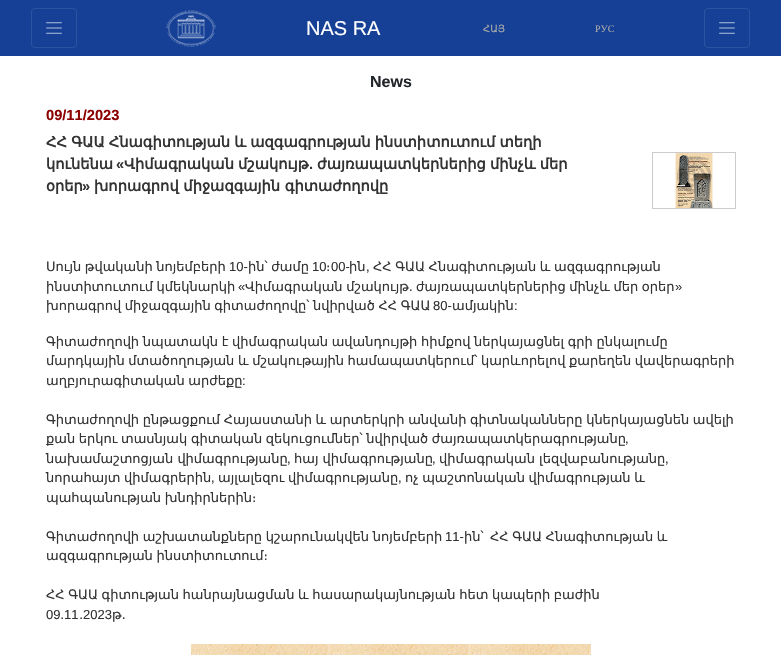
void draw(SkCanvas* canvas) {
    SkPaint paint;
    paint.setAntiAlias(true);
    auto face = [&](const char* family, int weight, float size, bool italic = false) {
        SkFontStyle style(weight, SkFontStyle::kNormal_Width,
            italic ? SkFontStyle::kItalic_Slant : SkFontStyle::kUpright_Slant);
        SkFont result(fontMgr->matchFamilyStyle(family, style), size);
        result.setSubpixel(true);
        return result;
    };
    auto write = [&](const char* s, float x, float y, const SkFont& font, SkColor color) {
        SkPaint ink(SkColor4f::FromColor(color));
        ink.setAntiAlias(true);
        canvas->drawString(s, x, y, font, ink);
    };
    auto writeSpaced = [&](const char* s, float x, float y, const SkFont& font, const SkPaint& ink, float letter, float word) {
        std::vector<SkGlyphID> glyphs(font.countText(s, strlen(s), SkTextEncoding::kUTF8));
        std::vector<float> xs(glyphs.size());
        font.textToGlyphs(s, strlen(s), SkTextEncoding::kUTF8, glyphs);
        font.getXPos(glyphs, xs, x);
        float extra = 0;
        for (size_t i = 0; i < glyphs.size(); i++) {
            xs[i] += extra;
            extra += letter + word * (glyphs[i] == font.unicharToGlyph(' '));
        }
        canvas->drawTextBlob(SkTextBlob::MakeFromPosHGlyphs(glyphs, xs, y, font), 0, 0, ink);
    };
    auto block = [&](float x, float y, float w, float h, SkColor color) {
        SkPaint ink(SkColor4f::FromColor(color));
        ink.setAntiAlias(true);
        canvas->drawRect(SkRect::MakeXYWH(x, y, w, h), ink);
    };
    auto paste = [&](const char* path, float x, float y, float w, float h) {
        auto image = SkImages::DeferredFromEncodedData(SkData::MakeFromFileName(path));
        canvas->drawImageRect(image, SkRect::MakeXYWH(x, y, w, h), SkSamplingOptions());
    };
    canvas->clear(SK_ColorWHITE);
    block(0, 0, 781, 56, SkColorSetRGB(21, 64, 150));
    paint.setStyle(SkPaint::kStroke_Style);
    paint.setStrokeWidth(1);
    paint.setColor(SkColorSetRGB(44, 83, 161));
    canvas->drawRoundRect(SkRect::MakeXYWH(31.5f, 8.5f, 45, 39), 3.5f, 3.5f, paint);
    paste("pic1.png", 46, 22, 16, 12);
    paste("pic2.png", 166, 10, 50, 37);
    auto kFont1 = face("Liberation Sans", 400, 20);
    write("NAS RA", 306, 35, kFont1, SK_ColorWHITE);
    auto kFont2 = face("DejaVu Sans", 400, 10);
    write("ՀԱՅ", 483, 32, kFont2, SkColorSetRGB(170, 170, 170));
    auto kFont3 = face("Liberation Serif", 400, 10);
    write("РУС", 595, 32, kFont3, SkColorSetRGB(170, 170, 170));
    canvas->drawRoundRect(SkRect::MakeXYWH(704.5f, 8.5f, 45, 39), 3.5f, 3.5f, paint);
    paste("pic1.png", 719, 22, 16, 12);
    auto kFont4 = face("Liberation Sans", 700, 16);
    write("News", 370, 87, kFont4, SkColorSetRGB(33, 37, 41));
    auto kFont5 = face("Liberation Sans", 700, 14.65f);
    write("09/11/2023", 46, 120, kFont5, SkColorSetRGB(139, 0, 0));
    auto kFont6 = face("DejaVu Sans", 700, 14.65f);
    paint.setStyle(SkPaint::kFill_Style);
    paint.setColor(SkColorSetRGB(51, 51, 51));
    writeSpaced("ՀՀ ԳԱԱ Հնագիտության և ազգագրության ինստիտուտում տեղի", 46, 147, kFont6, paint, 0, -0.5f);
    write("կունենա", 46, 169, kFont6, SkColorSetRGB(51, 51, 51));
    write("«", 116, 169, kFont5, SkColorSetRGB(51, 51, 51));
    writeSpaced("Վիմագրական մշակույթ", 124, 169, kFont6, paint, 0, -0.5f);
    write(".", 309, 169, kFont5, SkColorSetRGB(51, 51, 51));
    writeSpaced("ժայռապատկերներից մինչև մեր", 317, 169, kFont6, paint, 0, -0.5f);
    write("օրեր", 46, 191, kFont6, SkColorSetRGB(51, 51, 51));
    write("»", 82, 191, kFont5, SkColorSetRGB(51, 51, 51));
    write("խորագրով միջազգային գիտաժողովը", 94, 191, kFont6, SkColorSetRGB(51, 51, 51));
    paint.setStyle(SkPaint::kStroke_Style);
    paint.setColor(SkColorSetRGB(204, 204, 204));
    canvas->drawRect(SkRect::MakeXYWH(652.5f, 152.5f, 83, 56), paint);
    paste("pic3.png", 674, 153, 39, 55);
    auto kFont7 = face("DejaVu Sans", 400, 13);
    paint.setStyle(SkPaint::kFill_Style);
    paint.setColor(SkColorSetRGB(51, 51, 51));
    writeSpaced("Սույն թվականի նոյեմբերի", 46, 271, kFont7, paint, 0, -0.5f);
    auto kFont8 = face("Liberation Sans", 400, 13);
    write("10-", 229, 271, kFont8, SkColorSetRGB(51, 51, 51));
    writeSpaced("ին՝ ժամը", 248, 271, kFont7, paint, 0, -0.5f);
    write("10", 312, 271, kFont8, SkColorSetRGB(51, 51, 51));
    write("։", 326, 271, kFont7, SkColorSetRGB(51, 51, 51));
    write("00-", 331, 271, kFont8, SkColorSetRGB(51, 51, 51));
    write("ին", 349, 271, kFont7, SkColorSetRGB(51, 51, 51));
    write(",", 366, 271, kFont8, SkColorSetRGB(51, 51, 51));
    writeSpaced("ՀՀ ԳԱԱ Հնագիտության և ազգագրության", 373, 271, kFont7, paint, 0, -0.5f);
    writeSpaced("ինստիտուտում կմեկնարկի", 46, 291, kFont7, paint, 0, -0.5f);
    write("«", 238, 291, kFont8, SkColorSetRGB(51, 51, 51));
    writeSpaced("Վիմագրական մշակույթ", 245, 291, kFont7, paint, 0, -0.5f);
    write(".", 409, 291, kFont8, SkColorSetRGB(51, 51, 51));
    writeSpaced("ժայռապատկերներից մինչև մեր օրեր", 416, 291, kFont7, paint, 0, -0.5f);
    write("»", 675, 291, kFont8, SkColorSetRGB(51, 51, 51));
    writeSpaced("խորագրով միջազգային գիտաժողովը՝ նվիրված ՀՀ ԳԱԱ", 46, 310, kFont7, paint, 0, -0.5f);
    write("80-", 433, 310, kFont8, SkColorSetRGB(51, 51, 51));
    write("ամյակին", 452, 310, kFont7, SkColorSetRGB(51, 51, 51));
    write(":", 514, 310, kFont8, SkColorSetRGB(51, 51, 51));
    writeSpaced("Գիտաժողովի նպատակն է վիմագրական ավանդույթի հիմքով ներկայացնել գրի ընկալումը", 46, 346, kFont7, paint, 0, -0.5f);
    writeSpaced("մարդկային մտածողության և մշակութային համապատկերում՝ կարևորելով քարեղեն վավերագրերի", 46, 365, kFont7, paint, 0, -0.5f);
    writeSpaced("աղբյուրագիտական արժեքը", 46, 385, kFont7, paint, 0, -0.5f);
    write(":", 242, 385, kFont8, SkColorSetRGB(51, 51, 51));
    writeSpaced("Գիտաժողովի ընթացքում Հայաստանի և արտերկրի անվանի գիտնականները կներկայացնեն ավելի", 46, 424, kFont7, paint, 0, -0.5f);
    writeSpaced("քան երկու տասնյակ գիտական զեկուցումներ՝ նվիրված ժայռապատկերագրությանը", 46, 443, kFont7, paint, 0, -0.5f);
    write(",", 625, 443, kFont8, SkColorSetRGB(51, 51, 51));
    write("նախամաշտոցյան վիմագրությանը", 46, 463, kFont7, SkColorSetRGB(51, 51, 51));
    write(",", 287, 463, kFont8, SkColorSetRGB(51, 51, 51));
    write("հայ վիմագրությանը", 294, 463, kFont7, SkColorSetRGB(51, 51, 51));
    write(",", 432, 463, kFont8, SkColorSetRGB(51, 51, 51));
    write("վիմագրական լեզվաբանությանը", 439, 463, kFont7, SkColorSetRGB(51, 51, 51));
    write(",", 665, 463, kFont8, SkColorSetRGB(51, 51, 51));
    writeSpaced("նորահայտ վիմագրերին", 46, 482, kFont7, paint, 0, -0.5f);
    write(",", 211, 482, kFont8, SkColorSetRGB(51, 51, 51));
    writeSpaced("այլալեզու վիմագրությանը", 218, 482, kFont7, paint, 0, -0.5f);
    write(",", 398, 482, kFont8, SkColorSetRGB(51, 51, 51));
    writeSpaced("ոչ պաշտոնական վիմագրության և", 405, 482, kFont7, paint, 0, -0.5f);
    writeSpaced("պահպանության խնդիրներին։", 46, 502, kFont7, paint, 0, -0.5f);
    writeSpaced("Գիտաժողովի աշխատանքները կշարունակվեն նոյեմբերի", 46, 541, kFont7, paint, 0, -0.5f);
    write("11-", 445, 541, kFont8, SkColorSetRGB(51, 51, 51));
    write("ին՝", 464, 541, kFont7, SkColorSetRGB(51, 51, 51));
    writeSpaced("ՀՀ ԳԱԱ Հնագիտության և", 490, 541, kFont7, paint, 0, -0.5f);
    writeSpaced("ազգագրության ինստիտուտում։", 46, 560, kFont7, paint, 0, -0.5f);
    writeSpaced("ՀՀ ԳԱԱ գիտության հանրայնացման և հասարակայնության հետ կապերի բաժին", 46, 599, kFont7, paint, 0, -0.5f);
    write("09", 46, 619, kFont8, SkColorSetRGB(51, 51, 51));
    write("․", 60, 619, kFont7, SkColorSetRGB(51, 51, 51));
    write("11", 64, 619, kFont8, SkColorSetRGB(51, 51, 51));
    write("․", 79, 619, kFont7, SkColorSetRGB(51, 51, 51));
    write("2023", 83, 619, kFont8, SkColorSetRGB(51, 51, 51));
    write("թ․", 112, 619, kFont7, SkColorSetRGB(51, 51, 51));
    paste("pic4.png", 191, 644, 400, 11);
}
